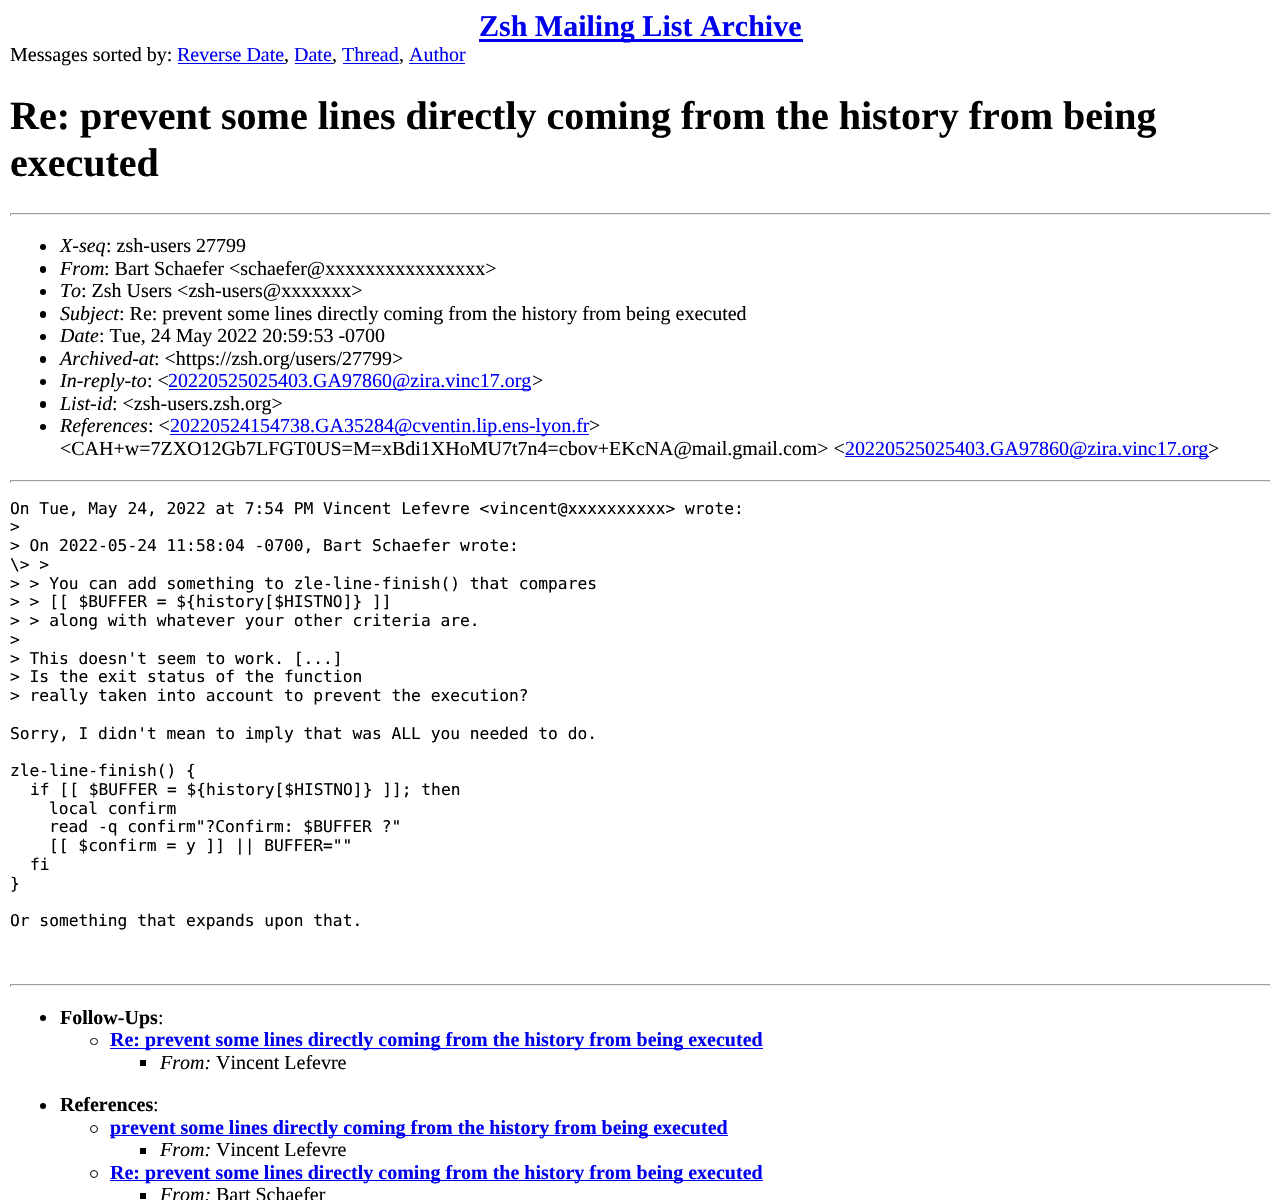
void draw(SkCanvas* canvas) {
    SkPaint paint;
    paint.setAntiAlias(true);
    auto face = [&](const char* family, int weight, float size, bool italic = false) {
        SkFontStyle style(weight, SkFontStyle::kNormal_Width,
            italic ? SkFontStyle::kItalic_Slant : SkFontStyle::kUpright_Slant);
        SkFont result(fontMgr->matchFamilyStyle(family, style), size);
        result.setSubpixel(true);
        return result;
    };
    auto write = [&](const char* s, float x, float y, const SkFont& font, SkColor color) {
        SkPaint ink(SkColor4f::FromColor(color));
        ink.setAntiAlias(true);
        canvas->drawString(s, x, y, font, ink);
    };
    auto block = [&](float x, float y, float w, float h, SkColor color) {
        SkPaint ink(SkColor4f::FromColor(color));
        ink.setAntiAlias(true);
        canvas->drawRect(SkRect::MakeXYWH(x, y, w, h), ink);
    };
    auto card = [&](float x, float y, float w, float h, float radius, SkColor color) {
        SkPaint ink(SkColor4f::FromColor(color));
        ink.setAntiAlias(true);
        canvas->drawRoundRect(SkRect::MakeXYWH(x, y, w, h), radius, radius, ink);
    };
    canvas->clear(SK_ColorWHITE);
    block(479, 39, 324, 3, SkColorSetRGB(0, 0, 238));
    auto kFont1 = face("Liberation Serif", 700, 30);
    write("Zsh Mailing List Archive", 479, 36, kFont1, SkColorSetRGB(0, 0, 238));
    auto kFont2 = face("Liberation Serif", 400, 20);
    write("Messages sorted by:", 10, 61, kFont2, SK_ColorBLACK);
    write("Reverse Date", 177, 61, kFont2, SkColorSetRGB(0, 0, 238));
    block(178, 63, 107, 1, SkColorSetRGB(0, 0, 238));
    write(",", 284, 61, kFont2, SK_ColorBLACK);
    write("Date", 294, 61, kFont2, SkColorSetRGB(0, 0, 238));
    block(295, 63, 38, 1, SkColorSetRGB(0, 0, 238));
    write(",", 332, 61, kFont2, SK_ColorBLACK);
    write("Thread", 342, 61, kFont2, SkColorSetRGB(0, 0, 238));
    block(343, 63, 56, 1, SkColorSetRGB(0, 0, 238));
    write(",", 399, 61, kFont2, SK_ColorBLACK);
    write("Author", 409, 61, kFont2, SkColorSetRGB(0, 0, 238));
    block(409, 63, 56, 1, SkColorSetRGB(0, 0, 238));
    auto kFont3 = face("Liberation Serif", 700, 40);
    write("Re: prevent some lines directly coming from the history from being", 10, 129, kFont3, SK_ColorBLACK);
    write("executed", 10, 176, kFont3, SK_ColorBLACK);
    block(10, 213, 1261, 1, SkColorSetRGB(159, 159, 159));
    block(1270, 213, 1, 3, SkColorSetRGB(238, 238, 238));
    block(10, 214, 1261, 1, SkColorSetRGB(238, 238, 238));
    block(10, 213, 1, 3, SkColorSetRGB(159, 159, 159));
    paint.setColor(SK_ColorBLACK);
    canvas->drawCircle(43, 247, 3, paint);
    auto kFont4 = face("Liberation Serif", 400, 20, true);
    write("X-seq", 60, 252, kFont4, SK_ColorBLACK);
    write(": zsh-users 27799", 106, 252, kFont2, SK_ColorBLACK);
    card(40, 266, 6, 7, 3, SK_ColorBLACK);
    write("From", 60, 275, kFont4, SK_ColorBLACK);
    write(": Bart Schaefer <schaefer@xxxxxxxxxxxxxxxx>", 104, 275, kFont2, SK_ColorBLACK);
    canvas->drawCircle(43, 292, 3, paint);
    write("To", 60, 297, kFont4, SK_ColorBLACK);
    write(": Zsh Users <zsh-users@xxxxxxx>", 81, 297, kFont2, SK_ColorBLACK);
    card(40, 311, 6, 7, 3, SK_ColorBLACK);
    write("Subject", 60, 320, kFont4, SK_ColorBLACK);
    write(": Re: prevent some lines directly coming from the history from being executed", 119, 320, kFont2, SK_ColorBLACK);
    canvas->drawCircle(43, 337, 3, paint);
    write("Date", 60, 342, kFont4, SK_ColorBLACK);
    write(": Tue, 24 May 2022 20:59:53 -0700", 99, 342, kFont2, SK_ColorBLACK);
    card(40, 356, 6, 7, 3, SK_ColorBLACK);
    write("Archived-at", 60, 365, kFont4, SK_ColorBLACK);
    write(": <https://zsh.org/users/27799>", 154, 365, kFont2, SK_ColorBLACK);
    canvas->drawCircle(43, 382, 3, paint);
    write("In-reply-to", 60, 387, kFont4, SK_ColorBLACK);
    write(": <", 147, 387, kFont2, SK_ColorBLACK);
    block(169, 389, 362, 1, SkColorSetRGB(0, 0, 238));
    write("20220525025403.GA97860@zira.vinc17.org", 168, 387, kFont2, SkColorSetRGB(0, 0, 238));
    write(">", 532, 387, kFont2, SK_ColorBLACK);
    card(40, 401, 6, 7, 3, SK_ColorBLACK);
    write("List-id", 60, 410, kFont4, SK_ColorBLACK);
    write(": <zsh-users.zsh.org>", 112, 410, kFont2, SK_ColorBLACK);
    canvas->drawCircle(43, 427, 3, paint);
    write("References", 60, 432, kFont4, SK_ColorBLACK);
    write(": <", 148, 432, kFont2, SK_ColorBLACK);
    block(170, 434, 419, 1, SkColorSetRGB(0, 0, 238));
    write("20220524154738.GA35284@cventin.lip.ens-lyon.fr", 170, 432, kFont2, SkColorSetRGB(0, 0, 238));
    write(">", 589, 432, kFont2, SK_ColorBLACK);
    write("<CAH+w=7ZXO12Gb7LFGT0US=M=xBdi1XHoMU7t7n4=cbov+EKcNA@mail.gmail.com> <", 60, 455, kFont2, SK_ColorBLACK);
    block(845, 456, 364, 1, SkColorSetRGB(0, 0, 238));
    write("20220525025403.GA97860@zira.vinc17.org", 845, 455, kFont2, SkColorSetRGB(0, 0, 238));
    write(">", 1208, 455, kFont2, SK_ColorBLACK);
    block(10, 480, 1261, 1, SkColorSetRGB(159, 159, 159));
    block(1270, 480, 1, 3, SkColorSetRGB(238, 238, 238));
    block(10, 481, 1261, 1, SkColorSetRGB(238, 238, 238));
    block(10, 480, 1, 3, SkColorSetRGB(159, 159, 159));
    auto kFont5 = face("DejaVu Sans Mono", 400, 16.25f);
    write("On Tue, May 24, 2022 at 7:54 PM Vincent Lefevre <vincent@xxxxxxxxxx> wrote:", 10, 514, kFont5, SK_ColorBLACK);
    write(">", 10, 532, kFont5, SK_ColorBLACK);
    write("> On 2022-05-24 11:58:04 -0700, Bart Schaefer wrote:", 10, 551, kFont5, SK_ColorBLACK);
    write("\\> >", 10, 570, kFont5, SK_ColorBLACK);
    write("> > You can add something to zle-line-finish() that compares", 10, 589, kFont5, SK_ColorBLACK);
    write("> > [[ $BUFFER = ${history[$HISTNO]} ]]", 10, 607, kFont5, SK_ColorBLACK);
    write("> > along with whatever your other criteria are.", 10, 626, kFont5, SK_ColorBLACK);
    write(">", 10, 645, kFont5, SK_ColorBLACK);
    write("> This doesn't seem to work. [...]", 10, 664, kFont5, SK_ColorBLACK);
    write("> Is the exit status of the function", 10, 682, kFont5, SK_ColorBLACK);
    write("> really taken into account to prevent the execution?", 10, 701, kFont5, SK_ColorBLACK);
    write("Sorry, I didn't mean to imply that was ALL you needed to do.", 10, 739, kFont5, SK_ColorBLACK);
    write("zle-line-finish() {", 10, 776, kFont5, SK_ColorBLACK);
    write("if [[ $BUFFER = ${history[$HISTNO]} ]]; then", 30, 795, kFont5, SK_ColorBLACK);
    write("local confirm", 49, 814, kFont5, SK_ColorBLACK);
    write("read -q confirm\"?Confirm: $BUFFER ?\"", 49, 832, kFont5, SK_ColorBLACK);
    write("[[ $confirm = y ]] || BUFFER=\"\"", 49, 851, kFont5, SK_ColorBLACK);
    write("fi", 30, 870, kFont5, SK_ColorBLACK);
    write("}", 10, 889, kFont5, SK_ColorBLACK);
    write("Or something that expands upon that.", 10, 926, kFont5, SK_ColorBLACK);
    block(10, 984, 1261, 1, SkColorSetRGB(159, 159, 159));
    block(1270, 984, 1, 3, SkColorSetRGB(238, 238, 238));
    block(10, 985, 1261, 1, SkColorSetRGB(238, 238, 238));
    block(10, 984, 1, 3, SkColorSetRGB(159, 159, 159));
    canvas->drawCircle(43, 1018, 3, paint);
    auto kFont6 = face("Liberation Serif", 700, 20);
    write("Follow-Ups", 60, 1024, kFont6, SK_ColorBLACK);
    write(":", 158, 1024, kFont2, SK_ColorBLACK);
    paint.setStyle(SkPaint::kStroke_Style);
    paint.setStrokeWidth(1);
    canvas->drawRoundRect(SkRect::MakeXYWH(90.5f, 1038.5f, 7, 6), 3, 3, paint);
    block(110, 1048, 653, 1, SkColorSetRGB(0, 0, 238));
    write("Re: prevent some lines directly coming from the history from being executed", 110, 1046, kFont6, SkColorSetRGB(0, 0, 238));
    block(140, 1060, 6, 6, SK_ColorBLACK);
    write("From:", 160, 1069, kFont4, SK_ColorBLACK);
    write("Vincent Lefevre", 216, 1069, kFont2, SK_ColorBLACK);
    paint.setStyle(SkPaint::kFill_Style);
    canvas->drawCircle(43, 1106, 3, paint);
    write("References", 60, 1111, kFont6, SK_ColorBLACK);
    write(":", 153, 1111, kFont2, SK_ColorBLACK);
    paint.setStyle(SkPaint::kStroke_Style);
    canvas->drawCircle(94, 1129, 3.5f, paint);
    block(110, 1135, 618, 1, SkColorSetRGB(0, 0, 238));
    write("prevent some lines directly coming from the history from being executed", 110, 1134, kFont6, SkColorSetRGB(0, 0, 238));
    block(140, 1148, 6, 6, SK_ColorBLACK);
    write("From:", 160, 1156, kFont4, SK_ColorBLACK);
    write("Vincent Lefevre", 216, 1156, kFont2, SK_ColorBLACK);
    canvas->drawCircle(94, 1174, 3.5f, paint);
    block(110, 1180, 653, 1, SkColorSetRGB(0, 0, 238));
    write("Re: prevent some lines directly coming from the history from being executed", 110, 1179, kFont6, SkColorSetRGB(0, 0, 238));
    block(140, 1193, 6, 6, SK_ColorBLACK);
    write("From:", 160, 1201, kFont4, SK_ColorBLACK);
    write("Bart Schaefer", 216, 1201, kFont2, SK_ColorBLACK);
}
